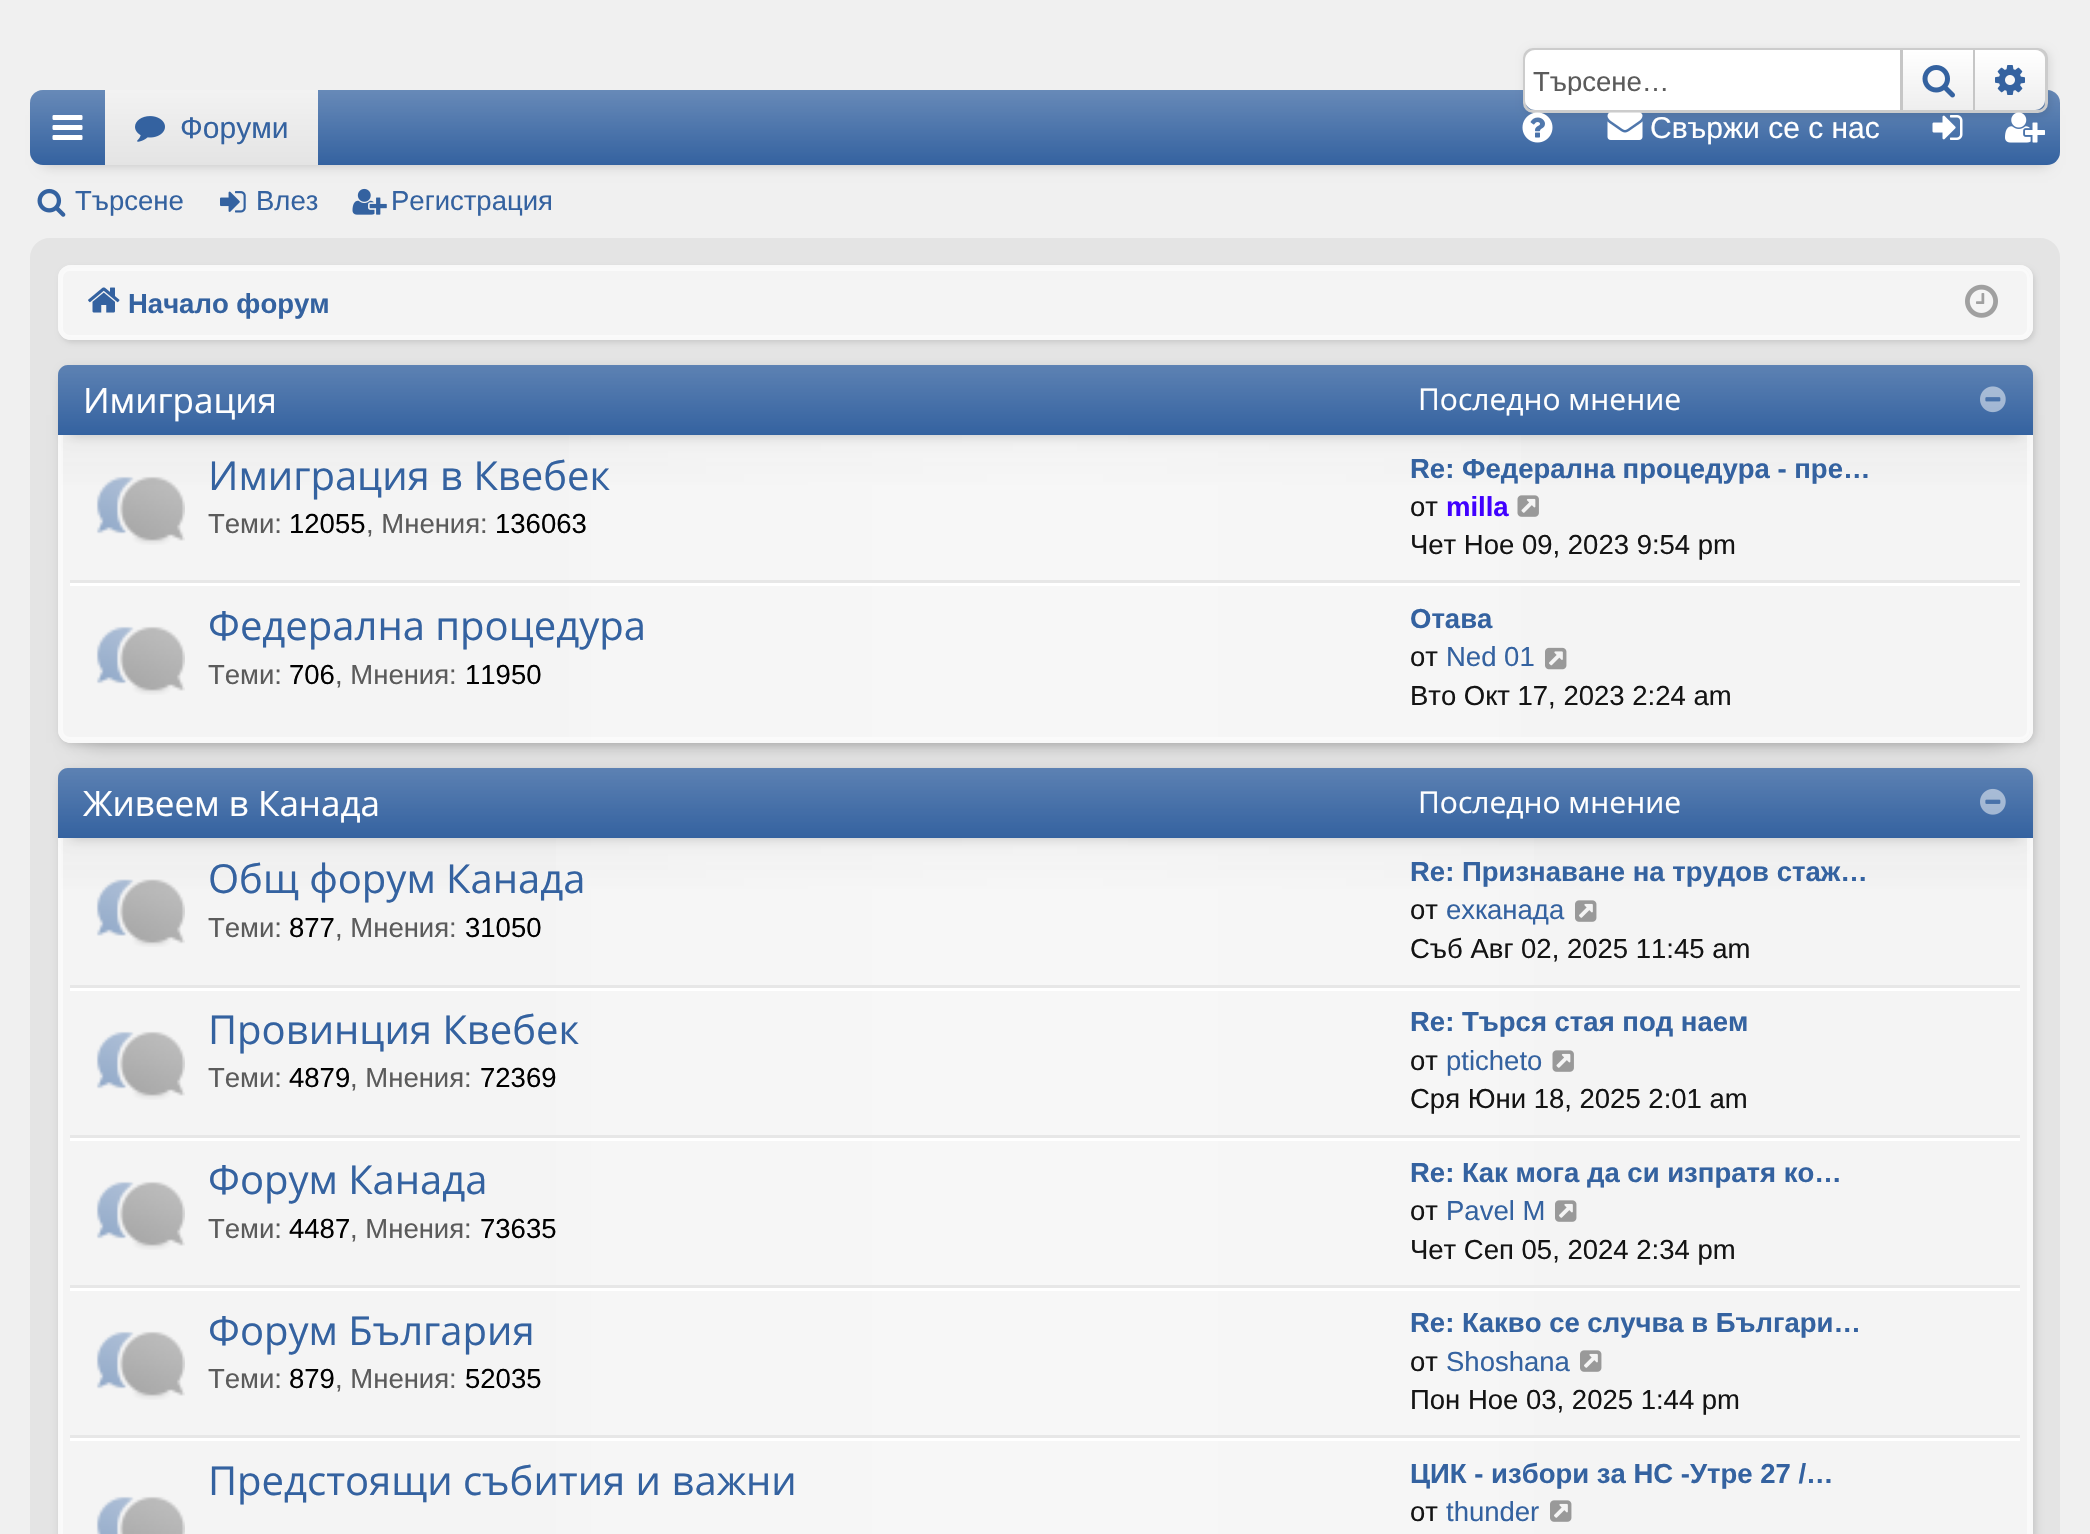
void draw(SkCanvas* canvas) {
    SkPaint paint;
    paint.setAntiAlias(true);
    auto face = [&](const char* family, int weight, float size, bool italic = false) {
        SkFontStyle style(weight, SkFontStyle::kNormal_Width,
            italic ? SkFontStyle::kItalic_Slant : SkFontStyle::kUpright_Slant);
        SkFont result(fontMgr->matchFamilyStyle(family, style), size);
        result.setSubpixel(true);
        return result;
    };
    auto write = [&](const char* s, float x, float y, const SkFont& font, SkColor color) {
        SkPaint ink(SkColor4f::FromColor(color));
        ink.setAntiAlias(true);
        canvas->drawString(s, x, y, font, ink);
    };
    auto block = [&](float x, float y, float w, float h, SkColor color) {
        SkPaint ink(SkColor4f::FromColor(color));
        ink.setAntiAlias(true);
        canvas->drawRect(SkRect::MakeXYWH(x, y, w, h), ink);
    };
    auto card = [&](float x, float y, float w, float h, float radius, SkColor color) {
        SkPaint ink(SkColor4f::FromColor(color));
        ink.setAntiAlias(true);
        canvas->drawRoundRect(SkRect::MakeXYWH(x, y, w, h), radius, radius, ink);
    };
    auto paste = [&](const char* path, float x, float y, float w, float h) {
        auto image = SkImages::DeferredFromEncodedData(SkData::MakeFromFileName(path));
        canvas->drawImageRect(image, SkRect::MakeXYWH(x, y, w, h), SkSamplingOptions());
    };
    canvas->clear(SkColorSetRGB(240, 240, 240));
    paint.setColor(SkColorSetARGB(51, 0, 0, 0));
    paint.setMaskFilter(SkMaskFilter::MakeBlur(kNormal_SkBlurStyle, 6));
    canvas->drawRect(SkRect::MakeXYWH(43, 115, 2005, 50), paint);
    paint.setMaskFilter(nullptr);
    card(30, 90, 2030, 75, 13, SkColorSetRGB(52, 98, 160));
    {
        const SkColor colors[] = {SkColorSetARGB(64, 255, 255, 255), SkColorSetARGB(0, 255, 255, 255)};
        const float stops[] = {0, 1};
        const SkPoint ends[] = {{1045, 90}, {1045, 165}};
        paint.setShader(SkGradientShader::MakeLinear(ends, colors, stops, 2, SkTileMode::kClamp));
        paint.setAlpha(255);
    }
    canvas->drawRoundRect(SkRect::MakeXYWH(30, 90, 2030, 75), 13, 13, paint);
    paint.setShader(nullptr);
    paint.setColor(SkColorSetARGB(26, 0, 0, 0));
    paint.setMaskFilter(SkMaskFilter::MakeBlur(kNormal_SkBlurStyle, 4));
    canvas->drawRoundRect(SkRect::MakeXYWH(1525, 50, 525, 65), 10, 10, paint);
    paint.setMaskFilter(nullptr);
    paint.setStyle(SkPaint::kStroke_Style);
    paint.setStrokeWidth(3);
    paint.setColor(SkColorSetRGB(204, 204, 204));
    canvas->drawRoundRect(SkRect::MakeXYWH(1524.5f, 49.5f, 522, 62), 8.5f, 8.5f, paint);
    paint.setStyle(SkPaint::kFill_Style);
    paint.setColor(SK_ColorWHITE);
    canvas->drawPath(SkPathBuilder().moveTo(1535, 50).lineTo(1900, 50).lineTo(1900, 110).lineTo(1535, 110).cubicTo(1529.5f, 110, 1525, 105.5f, 1525, 100).lineTo(1525, 60).cubicTo(1525, 54.5f, 1529.5f, 50, 1535, 50).close().detach(), paint);
    canvas->save();
    canvas->clipRect(SkRect::MakeXYWH(1533, 65, 350, 30));
    auto kFont1 = face("Liberation Sans", 400, 27.5f);
    write("Търсене…", 1533, 91, kFont1, SkColorSetRGB(91, 91, 91));
    canvas->restore();
    {
        const SkColor colors[] = {SK_ColorWHITE, SkColorSetRGB(238, 238, 238)};
        const float stops[] = {0, 1};
        const SkPoint ends[] = {{1938, 50}, {1938, 110}};
        paint.setShader(SkGradientShader::MakeLinear(ends, colors, stops, 2, SkTileMode::kClamp));
        paint.setAlpha(255);
    }
    canvas->drawRect(SkRect::MakeXYWH(1903, 50, 70, 60), paint);
    block(1973, 50, 2, 60, SkColorSetRGB(198, 198, 198));
    block(1900, 50, 3, 60, SkColorSetRGB(198, 198, 198));
    paste("pic1.png", 1922, 65, 33, 33);
    paint.setShader(nullptr);
    paint.setColor(SkColorSetRGB(238, 238, 238));
    canvas->drawPath(SkPathBuilder().moveTo(1975, 50).lineTo(2035, 50).cubicTo(2040.5f, 50, 2045, 54.5f, 2045, 60).lineTo(2045, 100).cubicTo(2045, 105.5f, 2040.5f, 110, 2035, 110).lineTo(1975, 110).close().detach(), paint);
    {
        const SkColor colors[] = {SK_ColorWHITE, SkColorSetARGB(0, 255, 255, 255)};
        const float stops[] = {0, 1};
        const SkPoint ends[] = {{2010, 50}, {2010, 110}};
        paint.setShader(SkGradientShader::MakeLinear(ends, colors, stops, 2, SkTileMode::kClamp));
        paint.setAlpha(255);
    }
    canvas->drawPath(SkPathBuilder().moveTo(1975, 50).lineTo(2035, 50).cubicTo(2040.5f, 50, 2045, 54.5f, 2045, 60).lineTo(2045, 100).cubicTo(2045, 105.5f, 2040.5f, 110, 2035, 110).lineTo(1975, 110).close().detach(), paint);
    paste("pic2.png", 1995, 65, 30, 30);
    paste("pic3.png", 52, 115, 31, 25);
    {
        const SkColor colors[] = {SkColorSetRGB(242, 242, 242), SkColorSetRGB(228, 228, 228)};
        const float stops[] = {0, 1};
        const SkPoint ends[] = {{211, 90}, {211, 165}};
        paint.setShader(SkGradientShader::MakeLinear(ends, colors, stops, 2, SkTileMode::kClamp));
        paint.setAlpha(255);
    }
    canvas->drawRect(SkRect::MakeXYWH(105, 90, 213, 75), paint);
    paste("pic4.png", 135, 116, 30, 26);
    auto kFont2 = face("Liberation Sans", 400, 30);
    write("Форуми", 180, 138, kFont2, SkColorSetRGB(52, 98, 160));
    paste("pic5.png", 1522, 112, 31, 31);
    paste("pic6.png", 1607, 112, 36, 28);
    write("Свържи се с нас", 1650, 138, kFont2, SK_ColorWHITE);
    paste("pic7.png", 1932, 115, 31, 25);
    paste("pic8.png", 2005, 112, 40, 31);
    paste("pic9.png", 37, 188, 29, 29);
    write("Търсене", 75, 210, kFont1, SkColorSetRGB(52, 98, 160));
    paste("pic10.png", 220, 191, 26, 22);
    write("Влез", 256, 210, kFont1, SkColorSetRGB(52, 98, 160));
    paste("pic11.png", 352, 188, 35, 27);
    write("Регистрация", 391, 210, kFont1, SkColorSetRGB(52, 98, 160));
    paint.setShader(nullptr);
    paint.setColor(SkColorSetRGB(228, 228, 228));
    canvas->drawRoundRect(SkRect::MakeXYWH(31.5f, 239.5f, 2027, 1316), 18.5f, 18.5f, paint);
    paint.setStyle(SkPaint::kStroke_Style);
    canvas->drawRoundRect(SkRect::MakeXYWH(31.5f, 239.5f, 2027, 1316), 18.5f, 18.5f, paint);
    paint.setStyle(SkPaint::kFill_Style);
    paint.setColor(SkColorSetARGB(26, 0, 0, 0));
    paint.setMaskFilter(SkMaskFilter::MakeBlur(kNormal_SkBlurStyle, 2.5f));
    canvas->drawRoundRect(SkRect::MakeXYWH(60, 268, 1975, 75), 13, 13, paint);
    paint.setMaskFilter(nullptr);
    card(58, 265, 1975, 75, 13, SkColorSetRGB(244, 244, 244));
    paint.setStyle(SkPaint::kStroke_Style);
    paint.setColor(SkColorSetRGB(250, 250, 250));
    canvas->drawRoundRect(SkRect::MakeXYWH(61.5f, 269.5f, 1967, 67), 8.5f, 8.5f, paint);
    paint.setColor(SkColorSetRGB(249, 249, 249));
    canvas->drawRoundRect(SkRect::MakeXYWH(59.5f, 266.5f, 1972, 72), 11.5f, 11.5f, paint);
    paste("pic12.png", 88, 287, 32, 26);
    auto kFont3 = face("Liberation Sans", 700, 27.5f);
    write("Начало форум", 128, 313, kFont3, SkColorSetRGB(52, 98, 160));
    paste("pic13.png", 1965, 284, 33, 34);
    paint.setStyle(SkPaint::kFill_Style);
    paint.setColor(SkColorSetARGB(51, 0, 0, 0));
    paint.setMaskFilter(SkMaskFilter::MakeBlur(kNormal_SkBlurStyle, 12.5f));
    canvas->drawRect(SkRect::MakeXYWH(83, 415, 1925, 328), paint);
    paint.setMaskFilter(nullptr);
    paint.setColor(SkColorSetARGB(38, 0, 0, 0));
    paint.setMaskFilter(SkMaskFilter::MakeBlur(kNormal_SkBlurStyle, 4));
    canvas->drawRoundRect(SkRect::MakeXYWH(60, 368, 1975, 377), 13, 13, paint);
    paint.setMaskFilter(nullptr);
    card(58, 365, 1975, 378, 13, SkColorSetRGB(244, 244, 244));
    canvas->save();
    canvas->clipPath(SkPathBuilder().moveTo(71, 365).lineTo(2020, 365).cubicTo(2027, 365, 2033, 371, 2033, 378).lineTo(2033, 730).cubicTo(2033, 737, 2027, 743, 2020, 743).lineTo(71, 743).cubicTo(64, 743, 58, 737, 58, 730).lineTo(58, 378).cubicTo(58, 371, 64, 365, 71, 365).close().detach(), true);
    {
        const SkColor colors[] = {SkColorSetARGB(51, 204, 204, 204), SkColorSetARGB(64, 204, 204, 204), SkColorSetARGB(0, 204, 204, 204)};
        const float stops[] = {0, 0.07f, 0.34f};
        const SkPoint ends[] = {{1045, 367}, {1045, 740}};
        paint.setShader(SkGradientShader::MakeLinear(ends, colors, stops, 3, SkTileMode::kClamp));
        paint.setAlpha(255);
    }
    canvas->drawRect(SkRect::MakeXYWH(58, 373, 1975, 112), paint);
    canvas->restore();
    {
        const SkColor colors[] = {SkColorSetARGB(0, 255, 255, 255), SkColorSetARGB(77, 255, 255, 255), SkColorSetARGB(0, 255, 255, 255)};
        const float stops[] = {0, 0.5f, 1};
        const SkPoint ends[] = {{60, 554}, {2030, 554}};
        paint.setShader(SkGradientShader::MakeLinear(ends, colors, stops, 3, SkTileMode::kClamp));
        paint.setAlpha(255);
    }
    canvas->drawRect(SkRect::MakeXYWH(569, 435, 952, 305), paint);
    paint.setStyle(SkPaint::kStroke_Style);
    paint.setShader(nullptr);
    paint.setColor(SkColorSetARGB(128, 255, 255, 255));
    canvas->drawRoundRect(SkRect::MakeXYWH(61.5f, 369.5f, 1967, 369), 8.5f, 8.5f, paint);
    paint.setColor(SkColorSetRGB(249, 249, 249));
    canvas->drawRoundRect(SkRect::MakeXYWH(59.5f, 366.5f, 1972, 375), 11.5f, 11.5f, paint);
    paint.setStyle(SkPaint::kFill_Style);
    paint.setColor(SkColorSetARGB(51, 0, 0, 0));
    paint.setMaskFilter(SkMaskFilter::MakeBlur(kNormal_SkBlurStyle, 6));
    canvas->drawRect(SkRect::MakeXYWH(70, 390, 1950, 45), paint);
    paint.setMaskFilter(nullptr);
    paint.setColor(SkColorSetRGB(52, 98, 160));
    canvas->drawPath(SkPathBuilder().moveTo(68, 365).lineTo(2023, 365).cubicTo(2028.5f, 365, 2033, 369.5f, 2033, 375).lineTo(2033, 435).lineTo(58, 435).lineTo(58, 375).cubicTo(58, 369.5f, 62.5f, 365, 68, 365).close().detach(), paint);
    {
        const SkColor colors[] = {SkColorSetARGB(51, 255, 255, 255), SkColorSetARGB(0, 255, 255, 255)};
        const float stops[] = {0, 1};
        const SkPoint ends[] = {{1045, 365}, {1045, 435}};
        paint.setShader(SkGradientShader::MakeLinear(ends, colors, stops, 2, SkTileMode::kClamp));
        paint.setAlpha(255);
    }
    canvas->drawPath(SkPathBuilder().moveTo(68, 365).lineTo(2023, 365).cubicTo(2028.5f, 365, 2033, 369.5f, 2033, 375).lineTo(2033, 435).lineTo(58, 435).lineTo(58, 375).cubicTo(58, 369.5f, 62.5f, 365, 68, 365).close().detach(), paint);
    auto kFont4 = face("Open Sans", 400, 35);
    write("Имиграция", 83, 413, kFont4, SK_ColorWHITE);
    auto kFont5 = face("Open Sans", 400, 30);
    write("Последно мнение", 1418, 410, kFont5, SK_ColorWHITE);
    paste("pic14.png", 1980, 386, 26, 27);
    block(70, 580, 1950, 3, SkColorSetRGB(231, 231, 231));
    paste("pic15.png", 96, 476, 89, 69);
    auto kFont6 = face("Open Sans", 400, 40);
    write("Имиграция в Квебек", 208, 490, kFont6, SkColorSetRGB(52, 98, 160));
    write("Теми:", 208, 533, kFont1, SkColorSetRGB(91, 91, 91));
    write("12055", 289, 533, kFont1, SK_ColorBLACK);
    write(", Мнения:", 366, 533, kFont1, SkColorSetRGB(91, 91, 91));
    write("136063", 495, 533, kFont1, SK_ColorBLACK);
    write("Re: Федерална процедура - пре…", 1410, 478, kFont3, SkColorSetRGB(52, 98, 160));
    write("от", 1410, 516, kFont1, SkColorSetRGB(20, 20, 20));
    write("milla", 1446, 516, kFont3, SkColorSetRGB(64, 0, 255));
    paste("pic16.png", 1517, 495, 22, 22);
    write("Чет Ное 09, 2023 9:54 pm", 1410, 554, kFont1, SkColorSetRGB(20, 20, 20));
    block(70, 583, 1950, 3, SK_ColorWHITE);
    paste("pic17.png", 96, 626, 89, 69);
    write("Федерална процедура", 208, 640, kFont6, SkColorSetRGB(52, 98, 160));
    write("Теми:", 208, 684, kFont1, SkColorSetRGB(91, 91, 91));
    write("706", 289, 684, kFont1, SK_ColorBLACK);
    write(", Мнения:", 335, 684, kFont1, SkColorSetRGB(91, 91, 91));
    write("11950", 465, 684, kFont1, SK_ColorBLACK);
    write("Отава", 1410, 628, kFont3, SkColorSetRGB(52, 98, 160));
    write("от", 1410, 666, kFont1, SkColorSetRGB(20, 20, 20));
    write("Ned 01", 1446, 666, kFont1, SkColorSetRGB(52, 98, 160));
    paste("pic18.png", 1545, 647, 22, 23);
    write("Вто Окт 17, 2023 2:24 am", 1410, 705, kFont1, SkColorSetRGB(20, 20, 20));
    paint.setShader(nullptr);
    paint.setColor(SkColorSetARGB(38, 0, 0, 0));
    paint.setMaskFilter(SkMaskFilter::MakeBlur(kNormal_SkBlurStyle, 4));
    canvas->drawRoundRect(SkRect::MakeXYWH(60, 770, 1975, 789), 13, 13, paint);
    paint.setMaskFilter(nullptr);
    card(58, 768, 1975, 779, 13, SkColorSetRGB(244, 244, 244));
    canvas->save();
    canvas->clipPath(SkPathBuilder().moveTo(71, 768).lineTo(2020, 768).cubicTo(2027, 768, 2033, 774, 2033, 781).lineTo(2033, 1615).cubicTo(2033, 1622, 2027, 1628, 2020, 1628).lineTo(71, 1628).cubicTo(64, 1628, 58, 1622, 58, 1615).lineTo(58, 781).cubicTo(58, 774, 64, 768, 71, 768).close().detach(), true);
    {
        const SkColor colors[] = {SkColorSetARGB(51, 204, 204, 204), SkColorSetARGB(64, 204, 204, 204), SkColorSetARGB(0, 204, 204, 204)};
        const float stops[] = {0, 0.03f, 0.15f};
        const SkPoint ends[] = {{1045, 770}, {1045, 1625}};
        paint.setShader(SkGradientShader::MakeLinear(ends, colors, stops, 3, SkTileMode::kClamp));
        paint.setAlpha(255);
    }
    canvas->drawRect(SkRect::MakeXYWH(58, 776, 1975, 113), paint);
    canvas->restore();
    {
        const SkColor colors[] = {SkColorSetARGB(0, 255, 255, 255), SkColorSetARGB(77, 255, 255, 255), SkColorSetARGB(0, 255, 255, 255)};
        const float stops[] = {0, 0.5f, 1};
        const SkPoint ends[] = {{60, 1198}, {2030, 1198}};
        paint.setShader(SkGradientShader::MakeLinear(ends, colors, stops, 3, SkTileMode::kClamp));
        paint.setAlpha(255);
    }
    canvas->drawRect(SkRect::MakeXYWH(556, 838, 978, 696), paint);
    paint.setStyle(SkPaint::kStroke_Style);
    paint.setShader(nullptr);
    paint.setColor(SkColorSetARGB(128, 255, 255, 255));
    canvas->drawRoundRect(SkRect::MakeXYWH(61.5f, 771.5f, 1967, 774), 8.5f, 8.5f, paint);
    paint.setColor(SkColorSetRGB(249, 249, 249));
    canvas->drawRoundRect(SkRect::MakeXYWH(59.5f, 769.5f, 1972, 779), 11.5f, 11.5f, paint);
    paint.setStyle(SkPaint::kFill_Style);
    paint.setColor(SkColorSetARGB(51, 0, 0, 0));
    paint.setMaskFilter(SkMaskFilter::MakeBlur(kNormal_SkBlurStyle, 6));
    canvas->drawRect(SkRect::MakeXYWH(70, 793, 1950, 45), paint);
    paint.setMaskFilter(nullptr);
    paint.setColor(SkColorSetRGB(52, 98, 160));
    canvas->drawPath(SkPathBuilder().moveTo(68, 768).lineTo(2023, 768).cubicTo(2028.5f, 768, 2033, 772.5f, 2033, 778).lineTo(2033, 838).lineTo(58, 838).lineTo(58, 778).cubicTo(58, 772.5f, 62.5f, 768, 68, 768).close().detach(), paint);
    {
        const SkColor colors[] = {SkColorSetARGB(51, 255, 255, 255), SkColorSetARGB(0, 255, 255, 255)};
        const float stops[] = {0, 1};
        const SkPoint ends[] = {{1045, 767}, {1045, 838}};
        paint.setShader(SkGradientShader::MakeLinear(ends, colors, stops, 2, SkTileMode::kClamp));
        paint.setAlpha(255);
    }
    canvas->drawPath(SkPathBuilder().moveTo(68, 768).lineTo(2023, 768).cubicTo(2028.5f, 768, 2033, 772.5f, 2033, 778).lineTo(2033, 838).lineTo(58, 838).lineTo(58, 778).cubicTo(58, 772.5f, 62.5f, 768, 68, 768).close().detach(), paint);
    write("Живеем в Канада", 83, 816, kFont4, SK_ColorWHITE);
    write("Последно мнение", 1418, 813, kFont5, SK_ColorWHITE);
    paste("pic19.png", 1980, 788, 26, 27);
    block(70, 985, 1950, 3, SkColorSetRGB(231, 231, 231));
    paste("pic20.png", 96, 879, 89, 68);
    write("Общ форум Канада", 208, 893, kFont6, SkColorSetRGB(52, 98, 160));
    write("Теми:", 208, 937, kFont1, SkColorSetRGB(91, 91, 91));
    write("877", 289, 937, kFont1, SK_ColorBLACK);
    write(", Мнения:", 335, 937, kFont1, SkColorSetRGB(91, 91, 91));
    write("31050", 465, 937, kFont1, SK_ColorBLACK);
    write("Re: Признаване на трудов стаж…", 1410, 881, kFont3, SkColorSetRGB(52, 98, 160));
    write("от", 1410, 919, kFont1, SkColorSetRGB(20, 20, 20));
    write("ехканада", 1446, 919, kFont1, SkColorSetRGB(52, 98, 160));
    paste("pic21.png", 1575, 900, 22, 22);
    write("Съб Авг 02, 2025 11:45 am", 1410, 958, kFont1, SkColorSetRGB(20, 20, 20));
    block(70, 988, 1950, 3, SK_ColorWHITE);
    block(70, 1135, 1950, 3, SkColorSetRGB(231, 231, 231));
    paste("pic17.png", 96, 1031, 89, 69);
    write("Провинция Квебек", 208, 1044, kFont6, SkColorSetRGB(52, 98, 160));
    write("Теми:", 208, 1087, kFont1, SkColorSetRGB(91, 91, 91));
    write("4879", 289, 1087, kFont1, SK_ColorBLACK);
    write(", Мнения:", 350, 1087, kFont1, SkColorSetRGB(91, 91, 91));
    write("72369", 480, 1087, kFont1, SK_ColorBLACK);
    write("Re: Търся стая под наем", 1410, 1031, kFont3, SkColorSetRGB(52, 98, 160));
    write("от", 1410, 1070, kFont1, SkColorSetRGB(20, 20, 20));
    write("pticheto", 1446, 1070, kFont1, SkColorSetRGB(52, 98, 160));
    paste("pic22.png", 1552, 1050, 22, 22);
    write("Сря Юни 18, 2025 2:01 am", 1410, 1108, kFont1, SkColorSetRGB(20, 20, 20));
    block(70, 1138, 1950, 3, SK_ColorWHITE);
    block(70, 1285, 1950, 3, SkColorSetRGB(231, 231, 231));
    paste("pic23.png", 96, 1181, 89, 69);
    write("Форум Канада", 208, 1194, kFont6, SkColorSetRGB(52, 98, 160));
    write("Теми:", 208, 1238, kFont1, SkColorSetRGB(91, 91, 91));
    write("4487", 289, 1238, kFont1, SK_ColorBLACK);
    write(", Мнения:", 350, 1238, kFont1, SkColorSetRGB(91, 91, 91));
    write("73635", 480, 1238, kFont1, SK_ColorBLACK);
    write("Re: Как мога да си изпратя ко…", 1410, 1182, kFont3, SkColorSetRGB(52, 98, 160));
    write("от", 1410, 1220, kFont1, SkColorSetRGB(20, 20, 20));
    write("Pavel M", 1446, 1220, kFont1, SkColorSetRGB(52, 98, 160));
    paste("pic24.png", 1555, 1200, 22, 22);
    write("Чет Сеп 05, 2024 2:34 pm", 1410, 1259, kFont1, SkColorSetRGB(20, 20, 20));
    block(70, 1288, 1950, 3, SK_ColorWHITE);
    block(70, 1435, 1950, 3, SkColorSetRGB(231, 231, 231));
    paste("pic17.png", 96, 1331, 89, 69);
    write("Форум България", 208, 1345, kFont6, SkColorSetRGB(52, 98, 160));
    write("Теми:", 208, 1388, kFont1, SkColorSetRGB(91, 91, 91));
    write("879", 289, 1388, kFont1, SK_ColorBLACK);
    write(", Мнения:", 335, 1388, kFont1, SkColorSetRGB(91, 91, 91));
    write("52035", 465, 1388, kFont1, SK_ColorBLACK);
    write("Re: Какво се случва в Българи…", 1410, 1332, kFont3, SkColorSetRGB(52, 98, 160));
    write("от", 1410, 1371, kFont1, SkColorSetRGB(20, 20, 20));
    write("Shoshana", 1446, 1371, kFont1, SkColorSetRGB(52, 98, 160));
    paste("pic25.png", 1580, 1350, 22, 22);
    write("Пон Ное 03, 2025 1:44 pm", 1410, 1409, kFont1, SkColorSetRGB(20, 20, 20));
    block(70, 1438, 1950, 3, SK_ColorWHITE);
    paste("pic26.png", 96, 1496, 89, 38);
    write("Предстоящи събития и важни", 208, 1495, kFont6, SkColorSetRGB(52, 98, 160));
    write("ЦИК - избори за НС -Утре 27 /…", 1410, 1483, kFont3, SkColorSetRGB(52, 98, 160));
    write("от", 1410, 1521, kFont1, SkColorSetRGB(20, 20, 20));
    write("thunder", 1446, 1521, kFont1, SkColorSetRGB(52, 98, 160));
    paste("pic27.png", 1550, 1500, 22, 22);
}
